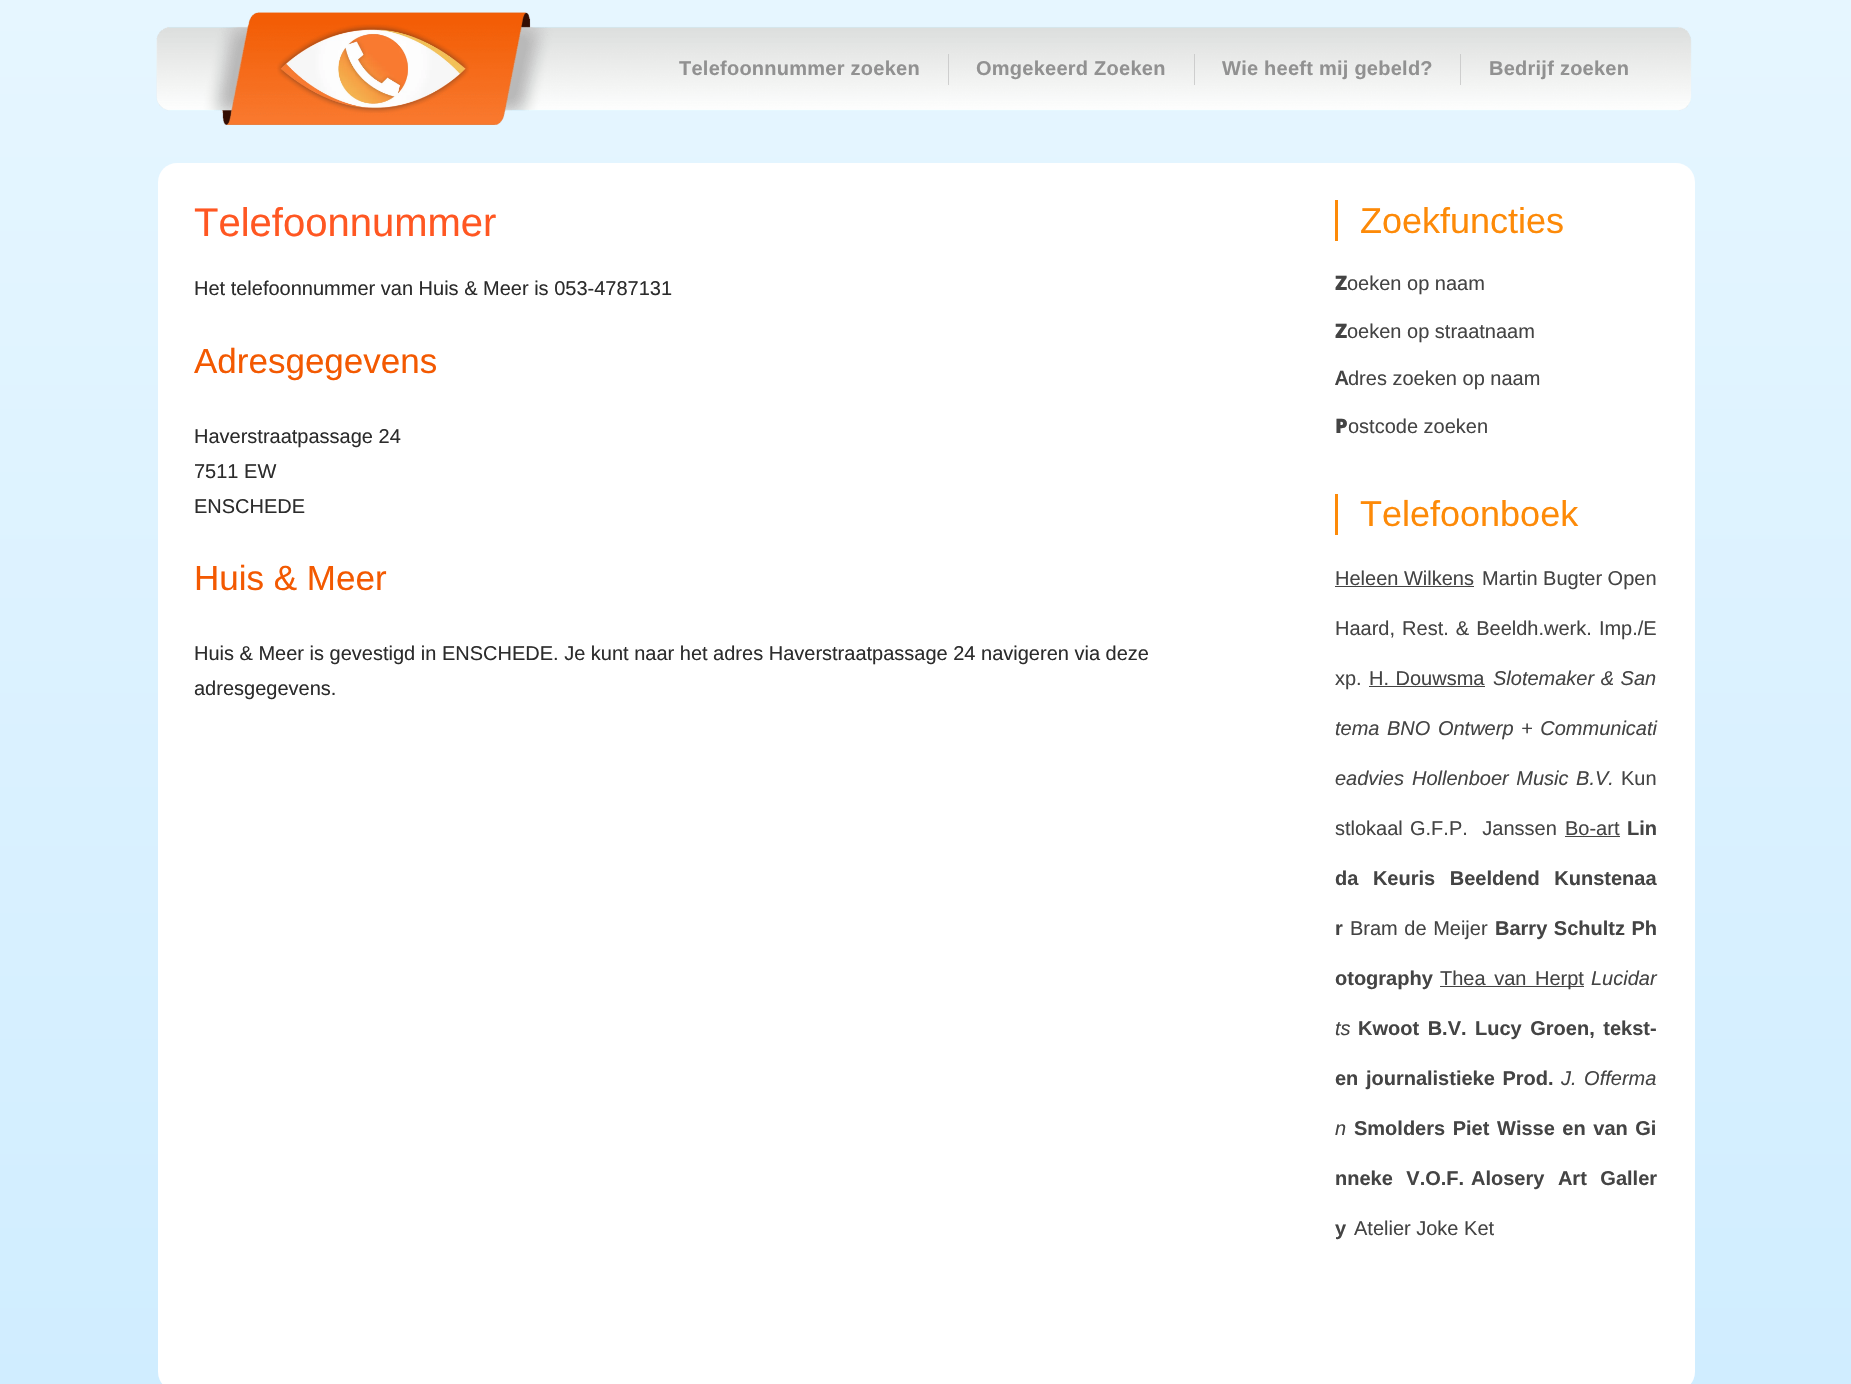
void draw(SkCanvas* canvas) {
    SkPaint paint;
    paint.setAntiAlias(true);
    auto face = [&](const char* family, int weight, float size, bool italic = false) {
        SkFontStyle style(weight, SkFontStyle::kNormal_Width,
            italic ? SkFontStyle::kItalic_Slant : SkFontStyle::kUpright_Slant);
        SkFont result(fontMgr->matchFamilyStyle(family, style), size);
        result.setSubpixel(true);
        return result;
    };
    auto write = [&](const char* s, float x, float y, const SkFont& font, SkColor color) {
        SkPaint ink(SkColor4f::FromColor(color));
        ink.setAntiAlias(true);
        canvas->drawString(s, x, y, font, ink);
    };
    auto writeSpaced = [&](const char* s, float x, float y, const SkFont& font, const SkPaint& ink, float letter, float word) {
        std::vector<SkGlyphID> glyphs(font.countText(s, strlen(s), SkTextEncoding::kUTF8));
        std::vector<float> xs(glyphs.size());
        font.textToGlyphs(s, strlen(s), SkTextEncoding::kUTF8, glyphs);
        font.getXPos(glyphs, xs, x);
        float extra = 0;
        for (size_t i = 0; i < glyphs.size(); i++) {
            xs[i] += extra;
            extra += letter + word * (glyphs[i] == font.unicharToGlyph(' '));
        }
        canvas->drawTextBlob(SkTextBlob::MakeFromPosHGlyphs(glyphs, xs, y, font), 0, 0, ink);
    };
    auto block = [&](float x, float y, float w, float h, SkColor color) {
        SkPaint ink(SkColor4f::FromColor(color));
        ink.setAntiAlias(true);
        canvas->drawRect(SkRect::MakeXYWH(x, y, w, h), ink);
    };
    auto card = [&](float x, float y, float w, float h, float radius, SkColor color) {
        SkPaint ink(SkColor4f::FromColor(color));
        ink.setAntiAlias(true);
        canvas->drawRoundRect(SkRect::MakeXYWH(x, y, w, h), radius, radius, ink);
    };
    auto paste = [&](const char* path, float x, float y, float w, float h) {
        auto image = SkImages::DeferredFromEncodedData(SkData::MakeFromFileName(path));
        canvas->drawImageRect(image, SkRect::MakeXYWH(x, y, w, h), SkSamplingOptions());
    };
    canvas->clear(SK_ColorWHITE);
    {
        const SkColor colors[] = {SkColorSetRGB(230, 246, 255), SkColorSetRGB(208, 237, 255)};
        const float stops[] = {0, 1};
        const SkPoint ends[] = {{926, 0}, {926, 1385}};
        paint.setShader(SkGradientShader::MakeLinear(ends, colors, stops, 2, SkTileMode::kClamp));
        paint.setAlpha(255);
    }
    canvas->drawRect(SkRect::MakeXYWH(0, 0, 1851, 1384), paint);
    paste("pic1.png", 156, 12, 1536, 113);
    paste("pic2.png", 277, 24, 192, 89);
    auto kFont1 = face("Liberation Sans", 700, 20);
    paint.setShader(nullptr);
    paint.setColor(SkColorSetRGB(145, 145, 145));
    writeSpaced("Telefoonnummer zoeken", 679, 75, kFont1, paint, 0.25f, 0);
    block(948, 54, 1, 31, SkColorSetARGB(204, 197, 197, 197));
    writeSpaced("Omgekeerd Zoeken", 976, 75, kFont1, paint, 0.25f, 0);
    block(1194, 54, 1, 31, SkColorSetARGB(204, 197, 197, 197));
    writeSpaced("Wie heeft mij gebeld?", 1222, 75, kFont1, paint, 0.25f, 0);
    block(1460, 54, 1, 31, SkColorSetARGB(204, 197, 197, 197));
    writeSpaced("Bedrijf zoeken", 1489, 75, kFont1, paint, 0.25f, 0);
    card(158, 163, 1537, 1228, 19, SK_ColorWHITE);
    auto kFont2 = face("Liberation Sans", 400, 40);
    write("Telefoonnummer", 194, 236, kFont2, SkColorSetRGB(255, 87, 34));
    auto kFont3 = face("Liberation Sans", 400, 20);
    write("Het telefoonnummer van Huis & Meer is 053-4787131", 194, 295, kFont3, SkColorSetRGB(44, 44, 44));
    auto kFont4 = face("Liberation Sans", 400, 35);
    write("Adresgegevens", 194, 373, kFont4, SkColorSetRGB(243, 89, 1));
    write("Haverstraatpassage 24", 194, 443, kFont3, SkColorSetRGB(44, 44, 44));
    write("7511 EW", 194, 478, kFont3, SkColorSetRGB(44, 44, 44));
    write("ENSCHEDE", 194, 513, kFont3, SkColorSetRGB(44, 44, 44));
    write("Huis & Meer", 194, 590, kFont4, SkColorSetRGB(243, 89, 1));
    write("Huis & Meer is gevestigd in ENSCHEDE. Je kunt naar het adres Haverstraatpassage 24 navigeren via deze", 194, 660, kFont3, SkColorSetRGB(44, 44, 44));
    write("adresgegevens.", 194, 695, kFont3, SkColorSetRGB(44, 44, 44));
    block(1335, 200, 3, 41, SkColorSetRGB(253, 138, 8));
    auto kFont5 = face("Liberation Sans", 400, 36);
    write("Zoekfuncties", 1360, 233, kFont5, SkColorSetRGB(253, 138, 8));
    auto kFont6 = face("Noto Sans", 900, 20);
    write("Z", 1335, 290, kFont6, SkColorSetRGB(68, 68, 68));
    write("oeken op naam", 1347, 290, kFont3, SkColorSetRGB(68, 68, 68));
    write("Z", 1335, 338, kFont6, SkColorSetRGB(68, 68, 68));
    write("oeken op straatnaam", 1347, 338, kFont3, SkColorSetRGB(68, 68, 68));
    auto kFont7 = face("Noto Sans", 600, 20);
    write("A", 1335, 385, kFont7, SkColorSetRGB(68, 68, 68));
    write("dres zoeken op naam", 1348, 385, kFont3, SkColorSetRGB(68, 68, 68));
    write("P", 1335, 433, kFont6, SkColorSetRGB(68, 68, 68));
    write("ostcode zoeken", 1348, 433, kFont3, SkColorSetRGB(68, 68, 68));
    block(1335, 494, 3, 41, SkColorSetRGB(253, 138, 8));
    write("Telefoonboek", 1360, 526, kFont5, SkColorSetRGB(253, 138, 8));
    write("Heleen Wilkens", 1335, 585, kFont3, SkColorSetRGB(68, 68, 68));
    block(1335, 586, 139, 1, SkColorSetRGB(68, 68, 68));
    write("Martin Bugter Open", 1482, 585, kFont3, SkColorSetRGB(68, 68, 68));
    paint.setColor(SkColorSetRGB(68, 68, 68));
    writeSpaced("Haard, Rest. & Beeldh.werk. Imp./E", 1335, 635, kFont3, paint, 0, 1.5f);
    write("xp.", 1335, 685, kFont3, SkColorSetRGB(68, 68, 68));
    writeSpaced("H. Douwsma", 1369, 685, kFont3, paint, 0, 1);
    block(1369, 686, 116, 1, SkColorSetRGB(68, 68, 68));
    auto kFont8 = face("Liberation Sans", 400, 20, true);
    writeSpaced("Slotemaker & San", 1493, 685, kFont8, paint, 0, 1);
    writeSpaced("tema BNO Ontwerp + Communicati", 1335, 735, kFont8, paint, 0, 2);
    write("eadvies", 1335, 785, kFont8, SkColorSetRGB(68, 68, 68));
    writeSpaced("Hollenboer Music B.V.", 1412, 785, kFont8, paint, 0, 2);
    write("Kun", 1621, 785, kFont3, SkColorSetRGB(68, 68, 68));
    write("stlokaal", 1335, 835, kFont3, SkColorSetRGB(68, 68, 68));
    writeSpaced("G.F.P. Janssen", 1410, 835, kFont3, paint, 0, 9);
    write("Bo-art", 1565, 835, kFont3, SkColorSetRGB(68, 68, 68));
    block(1565, 836, 55, 1, SkColorSetRGB(68, 68, 68));
    write("Lin", 1627, 835, kFont1, SkColorSetRGB(68, 68, 68));
    writeSpaced("da Keuris Beeldend Kunstenaa", 1335, 885, kFont1, paint, 0, 9);
    write("r", 1335, 935, kFont1, SkColorSetRGB(68, 68, 68));
    writeSpaced("Bram de Meijer", 1350, 935, kFont3, paint, 0, 1);
    writeSpaced("Barry Schultz Ph", 1495, 935, kFont1, paint, 0, 1);
    write("otography", 1335, 985, kFont1, SkColorSetRGB(68, 68, 68));
    block(1440, 986, 144, 1, SkColorSetRGB(68, 68, 68));
    writeSpaced("Thea van Herpt", 1440, 985, kFont3, paint, 0, 3);
    write("Lucidar", 1591, 985, kFont8, SkColorSetRGB(68, 68, 68));
    write("ts", 1335, 1035, kFont8, SkColorSetRGB(68, 68, 68));
    writeSpaced("Kwoot B.V.", 1358, 1035, kFont1, paint, 0, 3);
    writeSpaced("Lucy Groen, tekst-", 1475, 1035, kFont1, paint, 0, 3);
    writeSpaced("en journalistieke Prod.", 1335, 1085, kFont1, paint, 0, 2);
    writeSpaced("J. Offerma", 1561, 1085, kFont8, paint, 0, 2);
    write("n", 1335, 1135, kFont8, SkColorSetRGB(68, 68, 68));
    writeSpaced("Smolders Piet", 1354, 1135, kFont1, paint, 0, 2);
    writeSpaced("Wisse en van Gi", 1497, 1135, kFont1, paint, 0, 2);
    writeSpaced("nneke V.O.F.", 1335, 1185, kFont1, paint, 0, 8);
    writeSpaced("Alosery Art Galler", 1471, 1185, kFont1, paint, 0, 8);
    write("y", 1335, 1235, kFont1, SkColorSetRGB(68, 68, 68));
    write("Atelier Joke Ket", 1354, 1235, kFont3, SkColorSetRGB(68, 68, 68));
}
